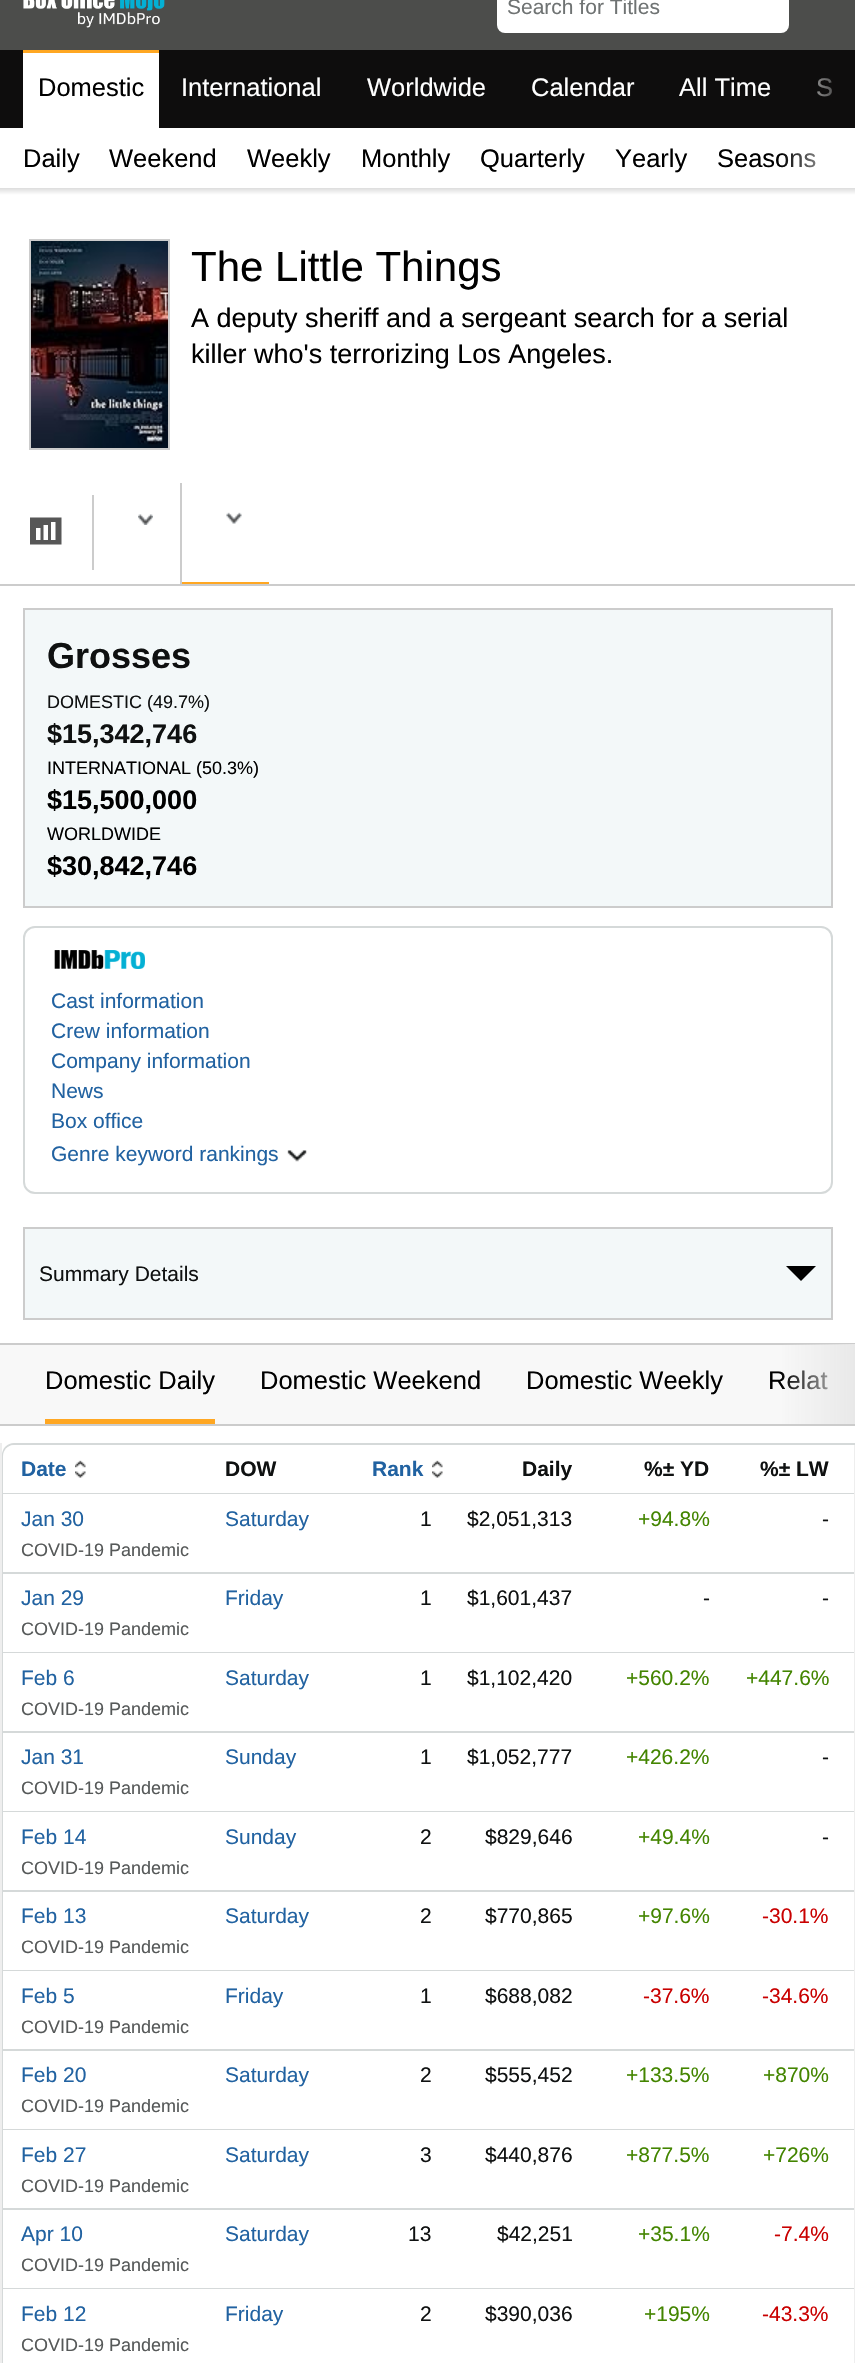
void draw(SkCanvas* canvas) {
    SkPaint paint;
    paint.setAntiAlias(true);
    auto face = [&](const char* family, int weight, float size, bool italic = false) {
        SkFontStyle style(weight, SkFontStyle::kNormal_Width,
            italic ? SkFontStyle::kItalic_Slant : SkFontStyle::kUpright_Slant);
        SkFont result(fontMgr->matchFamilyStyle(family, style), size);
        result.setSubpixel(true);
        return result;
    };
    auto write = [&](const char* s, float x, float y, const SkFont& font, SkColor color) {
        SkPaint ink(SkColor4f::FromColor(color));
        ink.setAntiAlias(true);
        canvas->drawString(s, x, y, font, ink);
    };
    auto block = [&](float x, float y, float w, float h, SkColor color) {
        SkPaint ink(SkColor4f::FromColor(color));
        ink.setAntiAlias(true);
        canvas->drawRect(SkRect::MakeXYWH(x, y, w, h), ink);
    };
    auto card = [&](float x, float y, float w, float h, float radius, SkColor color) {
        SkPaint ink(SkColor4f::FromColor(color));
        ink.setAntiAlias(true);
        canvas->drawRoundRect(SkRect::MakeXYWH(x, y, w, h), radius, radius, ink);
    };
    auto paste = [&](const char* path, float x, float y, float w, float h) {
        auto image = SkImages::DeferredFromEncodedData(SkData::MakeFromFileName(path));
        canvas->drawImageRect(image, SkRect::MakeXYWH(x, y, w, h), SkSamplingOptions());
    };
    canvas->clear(SkColorSetRGB(76, 77, 75));
    paste("pic1.png", 23, 0, 142, 28);
    card(497, -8, 292, 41, 8, SK_ColorWHITE);
    auto kFont1 = face("Liberation Sans", 400, 21);
    write("Search for Titles", 507, 14, kFont1, SkColorSetRGB(111, 115, 115));
    block(0, 50, 855, 78, SkColorSetRGB(14, 13, 13));
    block(23, 53, 136, 75, SK_ColorWHITE);
    block(23, 50, 136, 3, SkColorSetRGB(255, 167, 34));
    auto kFont2 = face("Liberation Sans", 400, 25.5f);
    write("Domestic", 38, 96, kFont2, SK_ColorBLACK);
    write("International", 181, 96, kFont2, SK_ColorWHITE);
    write("Worldwide", 367, 96, kFont2, SK_ColorWHITE);
    write("Calendar", 531, 96, kFont2, SK_ColorWHITE);
    write("All Time", 679, 96, kFont2, SK_ColorWHITE);
    write("S", 816, 96, kFont2, SK_ColorWHITE);
    {
        const SkColor colors[] = {SkColorSetARGB(0, 14, 13, 13), SkColorSetRGB(14, 13, 13)};
        const float stops[] = {0, 1};
        const SkPoint ends[] = {{780, 91}, {855, 91}};
        paint.setShader(SkGradientShader::MakeLinear(ends, colors, stops, 2, SkTileMode::kClamp));
        paint.setAlpha(255);
    }
    canvas->drawRect(SkRect::MakeXYWH(817, 78, 16, 19), paint);
    block(0, 128, 855, 60, SK_ColorWHITE);
    write("Daily", 23, 167, kFont2, SK_ColorBLACK);
    write("Weekend", 109, 167, kFont2, SK_ColorBLACK);
    write("Weekly", 247, 167, kFont2, SK_ColorBLACK);
    write("Monthly", 361, 167, kFont2, SK_ColorBLACK);
    write("Quarterly", 480, 167, kFont2, SK_ColorBLACK);
    write("Yearly", 615, 167, kFont2, SK_ColorBLACK);
    write("Seasons", 717, 167, kFont2, SK_ColorBLACK);
    {
        const SkColor colors[] = {SkColorSetARGB(0, 255, 255, 255), SK_ColorWHITE};
        const float stops[] = {0, 1};
        const SkPoint ends[] = {{780, 158}, {855, 158}};
        paint.setShader(SkGradientShader::MakeLinear(ends, colors, stops, 2, SkTileMode::kClamp));
        paint.setAlpha(255);
    }
    canvas->drawRect(SkRect::MakeXYWH(782, 153, 34, 15), paint);
    {
        const SkColor colors[] = {SkColorSetRGB(216, 216, 216), SK_ColorWHITE};
        const float stops[] = {0, 1};
        const SkPoint ends[] = {{428, 187}, {428, 195}};
        paint.setShader(SkGradientShader::MakeLinear(ends, colors, stops, 2, SkTileMode::kClamp));
        paint.setAlpha(255);
    }
    canvas->drawRect(SkRect::MakeXYWH(0, 188, 855, 7), paint);
    block(0, 195, 855, 2093, SK_ColorWHITE);
    paste("pic2.png", 31, 241, 137, 207);
    paint.setStyle(SkPaint::kStroke_Style);
    paint.setStrokeWidth(2);
    paint.setShader(nullptr);
    paint.setColor(SkColorSetRGB(204, 204, 204));
    canvas->drawRect(SkRect::MakeXYWH(30, 240, 139, 209), paint);
    auto kFont3 = face("Liberation Sans", 400, 42);
    write("The Little Things", 191, 281, kFont3, SK_ColorBLACK);
    auto kFont4 = face("Liberation Sans", 400, 27);
    write("A deputy sheriff and a sergeant search for a serial", 191, 327, kFont4, SK_ColorBLACK);
    write("killer who's terrorizing Los Angeles.", 191, 363, kFont4, SK_ColorBLACK);
    block(0, 584, 855, 2, SkColorSetRGB(204, 204, 204));
    block(92, 495, 2, 75, SkColorSetRGB(204, 204, 204));
    paste("pic3.png", 30, 517, 32, 28);
    block(180, 483, 2, 101, SkColorSetRGB(204, 204, 204));
    paste("pic4.png", 138, 514, 15, 11);
    block(182, 582, 87, 2, SkColorSetRGB(255, 167, 34));
    paste("pic5.png", 226, 512, 16, 12);
    paint.setStyle(SkPaint::kFill_Style);
    paint.setColor(SkColorSetRGB(243, 248, 249));
    canvas->drawRect(SkRect::MakeXYWH(24, 609, 808, 298), paint);
    paint.setStyle(SkPaint::kStroke_Style);
    paint.setColor(SkColorSetRGB(204, 204, 204));
    canvas->drawRect(SkRect::MakeXYWH(24, 609, 808, 298), paint);
    auto kFont5 = face("Liberation Sans", 700, 36);
    write("Grosses", 47, 668, kFont5, SkColorSetRGB(15, 17, 17));
    auto kFont6 = face("Liberation Sans", 400, 18);
    write("DOMESTIC (49.7%)", 47, 708, kFont6, SkColorSetRGB(15, 17, 17));
    auto kFont7 = face("Liberation Sans", 700, 27);
    write("$15,342,746", 47, 743, kFont7, SkColorSetRGB(15, 17, 17));
    write("INTERNATIONAL (50.3%)", 47, 774, kFont6, SK_ColorBLACK);
    write("$15,500,000", 47, 809, kFont7, SK_ColorBLACK);
    write("WORLDWIDE", 47, 840, kFont6, SK_ColorBLACK);
    write("$30,842,746", 47, 875, kFont7, SK_ColorBLACK);
    paint.setColor(SkColorSetRGB(213, 217, 217));
    canvas->drawRoundRect(SkRect::MakeXYWH(24, 927, 808, 266), 11, 11, paint);
    paste("pic6.png", 54, 950, 91, 19);
    write("Cast information", 51, 1008, kFont1, SkColorSetRGB(33, 98, 161));
    write("Crew information", 51, 1038, kFont1, SkColorSetRGB(33, 98, 161));
    write("Company information", 51, 1068, kFont1, SkColorSetRGB(33, 98, 161));
    write("News", 51, 1098, kFont1, SkColorSetRGB(33, 98, 161));
    write("Box office", 51, 1128, kFont1, SkColorSetRGB(33, 98, 161));
    write("Genre keyword rankings", 51, 1161, kFont1, SkColorSetRGB(33, 98, 161));
    paste("pic7.png", 287, 1150, 20, 12);
    paint.setStyle(SkPaint::kFill_Style);
    paint.setColor(SkColorSetRGB(243, 248, 249));
    canvas->drawRect(SkRect::MakeXYWH(24, 1228, 808, 91), paint);
    paint.setStyle(SkPaint::kStroke_Style);
    paint.setColor(SkColorSetRGB(204, 204, 204));
    canvas->drawRect(SkRect::MakeXYWH(24, 1228, 808, 91), paint);
    write("Summary Details", 39, 1281, kFont1, SkColorSetRGB(15, 17, 17));
    paint.setStyle(SkPaint::kFill_Style);
    paint.setColor(SK_ColorBLACK);
    canvas->drawPath(SkPathBuilder().moveTo(786, 1266).lineTo(816, 1266).lineTo(801, 1281).close().detach(), paint);
    block(0, 1345, 855, 79, SkColorSetRGB(248, 248, 248));
    block(0, 1343, 855, 2, SkColorSetRGB(204, 204, 204));
    block(0, 1424, 855, 2, SkColorSetRGB(204, 204, 204));
    write("Relat", 768, 1389, kFont2, SK_ColorBLACK);
    {
        const SkColor colors[] = {SkColorSetARGB(0, 232, 232, 232), SkColorSetRGB(232, 232, 232)};
        const float stops[] = {0, 1};
        const SkPoint ends[] = {{780, 1385}, {855, 1385}};
        paint.setShader(SkGradientShader::MakeLinear(ends, colors, stops, 2, SkTileMode::kClamp));
        paint.setAlpha(255);
    }
    canvas->drawRect(SkRect::MakeXYWH(782, 1344, 73, 80), paint);
    block(45, 1419, 170, 5, SkColorSetRGB(255, 167, 34));
    write("Domestic Daily", 45, 1389, kFont2, SK_ColorBLACK);
    write("Domestic Weekend", 260, 1389, kFont2, SK_ColorBLACK);
    write("Domestic Weekly", 526, 1389, kFont2, SK_ColorBLACK);
    block(854, 1443, 1, 920, SkColorSetRGB(238, 238, 238));
    block(0, 1443, 2, 920, SkColorSetRGB(238, 238, 238));
    paint.setStyle(SkPaint::kStroke_Style);
    paint.setShader(nullptr);
    paint.setColor(SkColorSetRGB(213, 217, 217));
    canvas->drawRoundRect(SkRect::MakeXYWH(3, 1444, 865, 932), 11, 11, paint);
    paint.setStyle(SkPaint::kFill_Style);
    paint.setColor(SK_ColorWHITE);
    canvas->drawPath(SkPathBuilder().moveTo(14, 1445).lineTo(207, 1445).lineTo(207, 1494).lineTo(3, 1494).lineTo(3, 1456).cubicTo(3, 1450, 8, 1445, 14, 1445).close().detach(), paint);
    block(3, 1493, 851, 1, SkColorSetRGB(213, 217, 217));
    auto kFont8 = face("Liberation Sans", 700, 21);
    write("Date", 21, 1476, kFont8, SkColorSetRGB(33, 98, 161));
    paste("pic8.png", 75, 1460, 11, 8);
    paste("pic9.png", 75, 1471, 11, 7);
    write("DOW", 225, 1476, kFont8, SkColorSetRGB(15, 17, 17));
    write("Rank", 372, 1476, kFont8, SkColorSetRGB(33, 98, 161));
    paste("pic10.png", 432, 1460, 11, 8);
    paste("pic11.png", 432, 1471, 11, 7);
    write("Daily", 522, 1476, kFont8, SkColorSetRGB(15, 17, 17));
    write("%± YD", 644, 1476, kFont8, SkColorSetRGB(15, 17, 17));
    write("%± LW", 760, 1476, kFont8, SkColorSetRGB(15, 17, 17));
    block(3, 1494, 1, 78, SK_ColorWHITE);
    write("Jan 30", 21, 1526, kFont1, SkColorSetRGB(33, 98, 161));
    write("COVID-19 Pandemic", 21, 1556, kFont6, SkColorSetRGB(86, 89, 89));
    block(3, 1572, 851, 2, SkColorSetRGB(213, 217, 217));
    write("Saturday", 225, 1526, kFont1, SkColorSetRGB(33, 98, 161));
    write("1", 420, 1526, kFont1, SkColorSetRGB(15, 17, 17));
    write("$2,051,313", 467, 1526, kFont1, SkColorSetRGB(15, 17, 17));
    write("+94.8%", 638, 1526, kFont1, SkColorSetRGB(67, 133, 0));
    write("-", 822, 1526, kFont1, SkColorSetRGB(15, 17, 17));
    block(3, 1574, 1, 78, SK_ColorWHITE);
    write("Jan 29", 21, 1605, kFont1, SkColorSetRGB(33, 98, 161));
    write("COVID-19 Pandemic", 21, 1635, kFont6, SkColorSetRGB(86, 89, 89));
    block(3, 1652, 851, 1, SkColorSetRGB(213, 217, 217));
    write("Friday", 225, 1605, kFont1, SkColorSetRGB(33, 98, 161));
    write("1", 420, 1605, kFont1, SkColorSetRGB(15, 17, 17));
    write("$1,601,437", 467, 1605, kFont1, SkColorSetRGB(15, 17, 17));
    write("-", 703, 1605, kFont1, SkColorSetRGB(15, 17, 17));
    write("-", 822, 1605, kFont1, SkColorSetRGB(15, 17, 17));
    block(3, 1653, 1, 78, SK_ColorWHITE);
    write("Feb 6", 21, 1685, kFont1, SkColorSetRGB(33, 98, 161));
    write("COVID-19 Pandemic", 21, 1715, kFont6, SkColorSetRGB(86, 89, 89));
    block(3, 1731, 851, 2, SkColorSetRGB(213, 217, 217));
    write("Saturday", 225, 1685, kFont1, SkColorSetRGB(33, 98, 161));
    write("1", 420, 1685, kFont1, SkColorSetRGB(15, 17, 17));
    write("$1,102,420", 467, 1685, kFont1, SkColorSetRGB(15, 17, 17));
    write("+560.2%", 626, 1685, kFont1, SkColorSetRGB(67, 133, 0));
    write("+447.6%", 746, 1685, kFont1, SkColorSetRGB(67, 133, 0));
    block(3, 1733, 1, 78, SK_ColorWHITE);
    write("Jan 31", 21, 1764, kFont1, SkColorSetRGB(33, 98, 161));
    write("COVID-19 Pandemic", 21, 1794, kFont6, SkColorSetRGB(86, 89, 89));
    block(3, 1811, 851, 1, SkColorSetRGB(213, 217, 217));
    write("Sunday", 225, 1764, kFont1, SkColorSetRGB(33, 98, 161));
    write("1", 420, 1764, kFont1, SkColorSetRGB(15, 17, 17));
    write("$1,052,777", 467, 1764, kFont1, SkColorSetRGB(15, 17, 17));
    write("+426.2%", 626, 1764, kFont1, SkColorSetRGB(67, 133, 0));
    write("-", 822, 1764, kFont1, SkColorSetRGB(15, 17, 17));
    block(3, 1812, 1, 78, SK_ColorWHITE);
    write("Feb 14", 21, 1844, kFont1, SkColorSetRGB(33, 98, 161));
    write("COVID-19 Pandemic", 21, 1874, kFont6, SkColorSetRGB(86, 89, 89));
    block(3, 1890, 851, 2, SkColorSetRGB(213, 217, 217));
    write("Sunday", 225, 1844, kFont1, SkColorSetRGB(33, 98, 161));
    write("2", 420, 1844, kFont1, SkColorSetRGB(15, 17, 17));
    write("$829,646", 485, 1844, kFont1, SkColorSetRGB(15, 17, 17));
    write("+49.4%", 638, 1844, kFont1, SkColorSetRGB(67, 133, 0));
    write("-", 822, 1844, kFont1, SkColorSetRGB(15, 17, 17));
    block(3, 1892, 1, 78, SK_ColorWHITE);
    write("Feb 13", 21, 1923, kFont1, SkColorSetRGB(33, 98, 161));
    write("COVID-19 Pandemic", 21, 1953, kFont6, SkColorSetRGB(86, 89, 89));
    block(3, 1970, 851, 1, SkColorSetRGB(213, 217, 217));
    write("Saturday", 225, 1923, kFont1, SkColorSetRGB(33, 98, 161));
    write("2", 420, 1923, kFont1, SkColorSetRGB(15, 17, 17));
    write("$770,865", 485, 1923, kFont1, SkColorSetRGB(15, 17, 17));
    write("+97.6%", 638, 1923, kFont1, SkColorSetRGB(67, 133, 0));
    write("-30.1%", 762, 1923, kFont1, SkColorSetRGB(201, 0, 0));
    block(3, 1971, 1, 78, SK_ColorWHITE);
    write("Feb 5", 21, 2003, kFont1, SkColorSetRGB(33, 98, 161));
    write("COVID-19 Pandemic", 21, 2033, kFont6, SkColorSetRGB(86, 89, 89));
    block(3, 2049, 851, 2, SkColorSetRGB(213, 217, 217));
    write("Friday", 225, 2003, kFont1, SkColorSetRGB(33, 98, 161));
    write("1", 420, 2003, kFont1, SkColorSetRGB(15, 17, 17));
    write("$688,082", 485, 2003, kFont1, SkColorSetRGB(15, 17, 17));
    write("-37.6%", 643, 2003, kFont1, SkColorSetRGB(201, 0, 0));
    write("-34.6%", 762, 2003, kFont1, SkColorSetRGB(201, 0, 0));
    block(3, 2051, 1, 78, SK_ColorWHITE);
    write("Feb 20", 21, 2082, kFont1, SkColorSetRGB(33, 98, 161));
    write("COVID-19 Pandemic", 21, 2112, kFont6, SkColorSetRGB(86, 89, 89));
    block(3, 2129, 851, 1, SkColorSetRGB(213, 217, 217));
    write("Saturday", 225, 2082, kFont1, SkColorSetRGB(33, 98, 161));
    write("2", 420, 2082, kFont1, SkColorSetRGB(15, 17, 17));
    write("$555,452", 485, 2082, kFont1, SkColorSetRGB(15, 17, 17));
    write("+133.5%", 626, 2082, kFont1, SkColorSetRGB(67, 133, 0));
    write("+870%", 763, 2082, kFont1, SkColorSetRGB(67, 133, 0));
    block(3, 2130, 1, 78, SK_ColorWHITE);
    write("Feb 27", 21, 2162, kFont1, SkColorSetRGB(33, 98, 161));
    write("COVID-19 Pandemic", 21, 2192, kFont6, SkColorSetRGB(86, 89, 89));
    block(3, 2208, 851, 2, SkColorSetRGB(213, 217, 217));
    write("Saturday", 225, 2162, kFont1, SkColorSetRGB(33, 98, 161));
    write("3", 420, 2162, kFont1, SkColorSetRGB(15, 17, 17));
    write("$440,876", 485, 2162, kFont1, SkColorSetRGB(15, 17, 17));
    write("+877.5%", 626, 2162, kFont1, SkColorSetRGB(67, 133, 0));
    write("+726%", 763, 2162, kFont1, SkColorSetRGB(67, 133, 0));
    block(3, 2210, 1, 78, SK_ColorWHITE);
    write("Apr 10", 21, 2241, kFont1, SkColorSetRGB(33, 98, 161));
    write("COVID-19 Pandemic", 21, 2271, kFont6, SkColorSetRGB(86, 89, 89));
    block(3, 2288, 851, 1, SkColorSetRGB(213, 217, 217));
    write("Saturday", 225, 2241, kFont1, SkColorSetRGB(33, 98, 161));
    write("13", 408, 2241, kFont1, SkColorSetRGB(15, 17, 17));
    write("$42,251", 497, 2241, kFont1, SkColorSetRGB(15, 17, 17));
    write("+35.1%", 638, 2241, kFont1, SkColorSetRGB(67, 133, 0));
    write("-7.4%", 774, 2241, kFont1, SkColorSetRGB(201, 0, 0));
    block(3, 2289, 851, 74, SK_ColorWHITE);
    write("Feb 12", 21, 2321, kFont1, SkColorSetRGB(33, 98, 161));
    write("COVID-19 Pandemic", 21, 2351, kFont6, SkColorSetRGB(86, 89, 89));
    write("Friday", 225, 2321, kFont1, SkColorSetRGB(33, 98, 161));
    write("2", 420, 2321, kFont1, SkColorSetRGB(15, 17, 17));
    write("$390,036", 485, 2321, kFont1, SkColorSetRGB(15, 17, 17));
    write("+195%", 644, 2321, kFont1, SkColorSetRGB(67, 133, 0));
    write("-43.3%", 762, 2321, kFont1, SkColorSetRGB(201, 0, 0));
}
